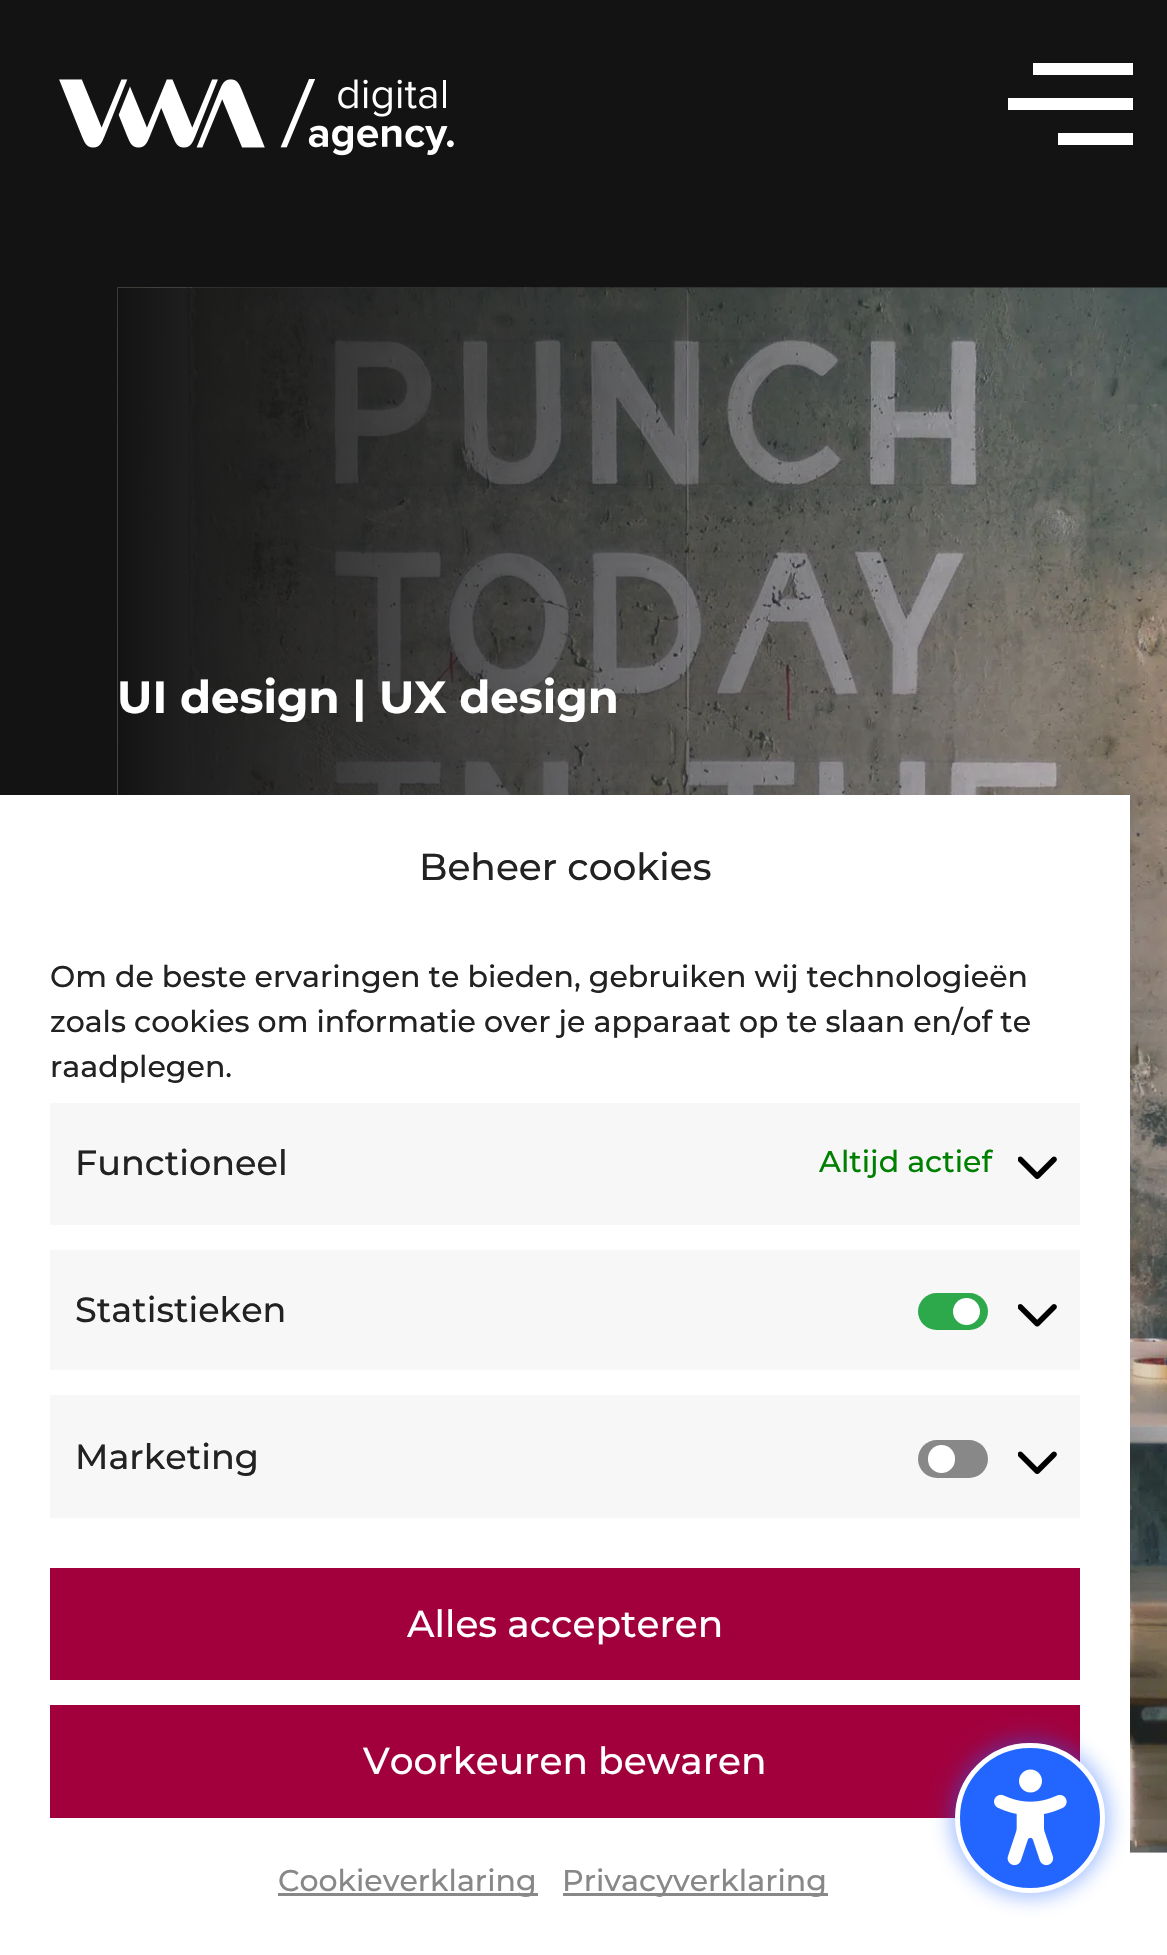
void draw(SkCanvas* canvas) {
    SkPaint paint;
    paint.setAntiAlias(true);
    auto face = [&](const char* family, int weight, float size, bool italic = false) {
        SkFontStyle style(weight, SkFontStyle::kNormal_Width,
            italic ? SkFontStyle::kItalic_Slant : SkFontStyle::kUpright_Slant);
        SkFont result(fontMgr->matchFamilyStyle(family, style), size);
        result.setSubpixel(true);
        return result;
    };
    auto write = [&](const char* s, float x, float y, const SkFont& font, SkColor color) {
        SkPaint ink(SkColor4f::FromColor(color));
        ink.setAntiAlias(true);
        canvas->drawString(s, x, y, font, ink);
    };
    auto block = [&](float x, float y, float w, float h, SkColor color) {
        SkPaint ink(SkColor4f::FromColor(color));
        ink.setAntiAlias(true);
        canvas->drawRect(SkRect::MakeXYWH(x, y, w, h), ink);
    };
    auto card = [&](float x, float y, float w, float h, float radius, SkColor color) {
        SkPaint ink(SkColor4f::FromColor(color));
        ink.setAntiAlias(true);
        canvas->drawRoundRect(SkRect::MakeXYWH(x, y, w, h), radius, radius, ink);
    };
    auto paste = [&](const char* path, float x, float y, float w, float h) {
        auto image = SkImages::DeferredFromEncodedData(SkData::MakeFromFileName(path));
        canvas->drawImageRect(image, SkRect::MakeXYWH(x, y, w, h), SkSamplingOptions());
    };
    canvas->clear(SkColorSetRGB(19, 19, 19));
    paste("pic1.png", 59, 79, 395, 77);
    block(1033, 63, 100, 12, SK_ColorWHITE);
    block(1008, 98, 125, 12, SK_ColorWHITE);
    block(1058, 133, 75, 12, SK_ColorWHITE);
    block(1130, 1852, 37, 1, SkColorSetRGB(228, 228, 228));
    paste("pic2.png", 117, 287, 1050, 1566);
    auto kFont1 = face("Montserrat", 100, 45);
    write("UI design | UX design", 117, 713, kFont1, SK_ColorWHITE);
    block(1130, 1853, 37, 102, SK_ColorWHITE);
    block(0, 795, 1130, 1160, SK_ColorWHITE);
    auto kFont2 = face("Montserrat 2", 100, 37.5f);
    write("Beheer cookies", 419, 880, kFont2, SkColorSetRGB(34, 34, 34));
    auto kFont3 = face("Montserrat 2", 100, 30);
    write("Om de beste ervaringen te bieden, gebruiken wij technologieën", 50, 987, kFont3, SkColorSetRGB(34, 34, 34));
    write("zoals cookies om informatie over je apparaat op te slaan en/of te", 50, 1032, kFont3, SkColorSetRGB(34, 34, 34));
    write("raadplegen.", 50, 1077, kFont3, SkColorSetRGB(34, 34, 34));
    block(50, 1103, 1030, 122, SkColorSetRGB(247, 247, 247));
    auto kFont4 = face("Montserrat 2", 100, 35);
    write("Functioneel", 75, 1175, kFont4, SkColorSetRGB(34, 34, 34));
    write("Altijd actief", 819, 1172, kFont3, SkColorSetRGB(0, 128, 0));
    paste("pic3.png", 1018, 1156, 39, 23);
    block(50, 1250, 1030, 120, SkColorSetRGB(247, 247, 247));
    write("Statistieken", 75, 1322, kFont4, SkColorSetRGB(34, 34, 34));
    card(918, 1293, 70, 37, 18.5f, SkColorSetRGB(45, 169, 76));
    paint.setColor(SK_ColorWHITE);
    canvas->drawCircle(966.5f, 1311.5f, 13.5f, paint);
    paste("pic4.png", 1018, 1304, 39, 23);
    block(50, 1395, 1030, 123, SkColorSetRGB(247, 247, 247));
    write("Marketing", 75, 1469, kFont4, SkColorSetRGB(34, 34, 34));
    card(918, 1440, 70, 38, 19, SkColorSetRGB(136, 136, 136));
    card(928, 1445, 27, 28, 13.5f, SK_ColorWHITE);
    paste("pic3.png", 1018, 1451, 39, 23);
    block(50, 1568, 1030, 112, SkColorSetRGB(161, 0, 61));
    write("Alles accepteren", 407, 1637, kFont2, SK_ColorWHITE);
    block(50, 1705, 1030, 113, SkColorSetRGB(161, 0, 61));
    write("Voorkeuren bewaren", 363, 1774, kFont2, SK_ColorWHITE);
    block(278, 1893, 260, 3, SkColorSetRGB(136, 136, 136));
    write("Cookieverklaring", 278, 1891, kFont3, SkColorSetRGB(136, 136, 136));
    block(563, 1893, 265, 3, SkColorSetRGB(136, 136, 136));
    write("Privacyverklaring", 562, 1891, kFont3, SkColorSetRGB(136, 136, 136));
    paint.setColor(SkColorSetARGB(102, 34, 102, 255));
    paint.setMaskFilter(SkMaskFilter::MakeBlur(kNormal_SkBlurStyle, 10));
    canvas->drawRoundRect(SkRect::MakeXYWH(950, 1738, 160, 160), 80, 80, paint);
    paint.setMaskFilter(nullptr);
    paint.setColor(SkColorSetRGB(34, 102, 255));
    canvas->drawCircle(1030, 1818, 72.5f, paint);
    paint.setStyle(SkPaint::kStroke_Style);
    paint.setStrokeWidth(5);
    paint.setColor(SK_ColorWHITE);
    canvas->drawCircle(1030, 1818, 72.5f, paint);
    paste("pic5.png", 994, 1769, 73, 97);
}
